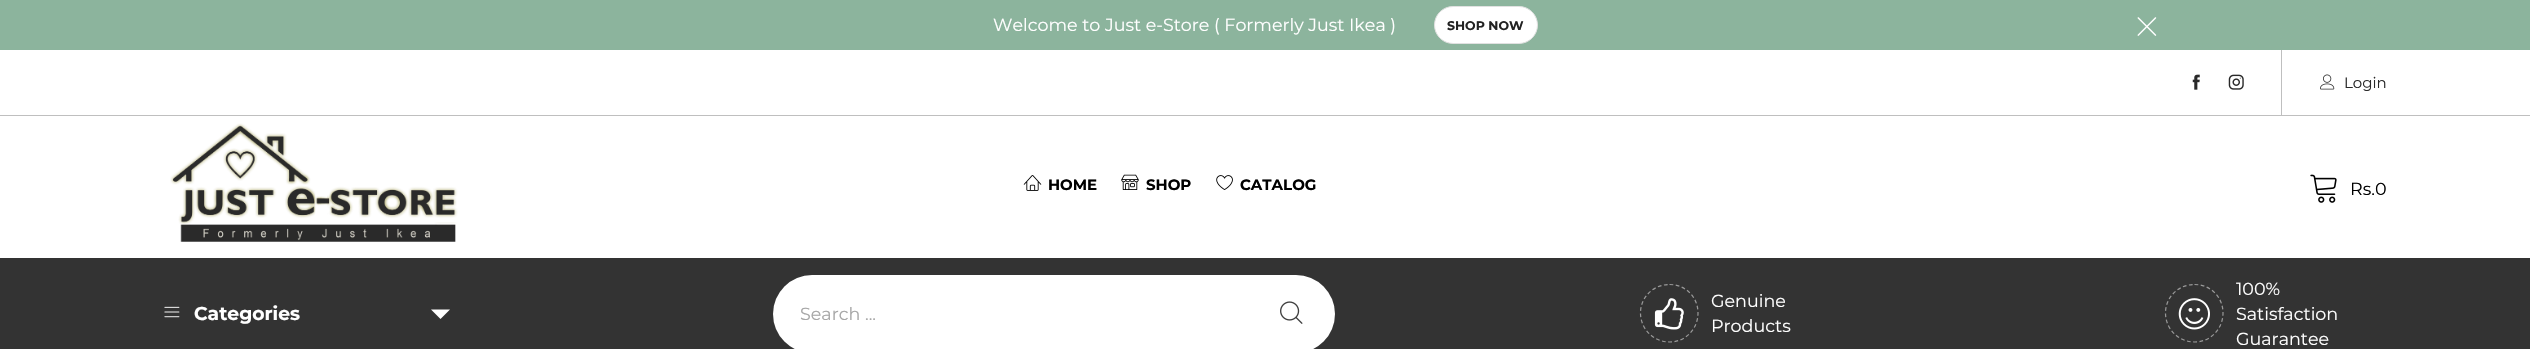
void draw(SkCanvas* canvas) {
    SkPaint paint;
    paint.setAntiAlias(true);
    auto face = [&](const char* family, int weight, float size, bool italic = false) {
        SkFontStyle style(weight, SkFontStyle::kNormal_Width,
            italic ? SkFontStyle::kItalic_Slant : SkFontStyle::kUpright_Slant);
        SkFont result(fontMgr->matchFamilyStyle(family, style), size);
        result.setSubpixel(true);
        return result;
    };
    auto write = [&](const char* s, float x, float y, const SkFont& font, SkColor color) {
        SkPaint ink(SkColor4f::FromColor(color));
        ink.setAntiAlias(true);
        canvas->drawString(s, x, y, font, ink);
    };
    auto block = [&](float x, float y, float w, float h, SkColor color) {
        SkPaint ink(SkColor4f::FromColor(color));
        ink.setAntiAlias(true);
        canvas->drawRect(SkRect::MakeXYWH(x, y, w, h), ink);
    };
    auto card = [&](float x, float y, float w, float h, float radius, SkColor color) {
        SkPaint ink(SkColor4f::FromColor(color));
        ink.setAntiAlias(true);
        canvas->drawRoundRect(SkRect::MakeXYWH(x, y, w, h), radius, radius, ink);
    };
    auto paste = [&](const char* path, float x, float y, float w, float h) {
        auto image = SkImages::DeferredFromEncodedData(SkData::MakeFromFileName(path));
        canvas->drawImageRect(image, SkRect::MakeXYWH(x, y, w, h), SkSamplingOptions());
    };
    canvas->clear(SK_ColorWHITE);
    block(0, 0, 2530, 50, SkColorSetRGB(140, 180, 157));
    auto kFont1 = face("Montserrat", 400, 17.5f);
    write("Welcome to Just e-Store ( Formerly Just Ikea )", 993, 31, kFont1, SK_ColorWHITE);
    paint.setColor(SK_ColorWHITE);
    canvas->drawRoundRect(SkRect::MakeXYWH(1434.5f, 6.5f, 103, 37), 18.5f, 18.5f, paint);
    paint.setStyle(SkPaint::kStroke_Style);
    paint.setStrokeWidth(1);
    paint.setColor(SkColorSetRGB(225, 225, 225));
    canvas->drawRoundRect(SkRect::MakeXYWH(1434.5f, 6.5f, 103, 37), 18.5f, 18.5f, paint);
    auto kFont2 = face("Montserrat", 700, 12.5f);
    write("SHOP NOW", 1447, 30, kFont2, SkColorSetRGB(34, 34, 34));
    paste("pic1.png", 2137, 17, 20, 19);
    block(0, 115, 2530, 1, SkColorSetRGB(191, 191, 191));
    block(2281, 50, 1, 65, SkColorSetRGB(191, 191, 191));
    paste("pic2.png", 2192, 74, 8, 16);
    paste("pic3.png", 2228, 74, 16, 16);
    paste("pic4.png", 2320, 74, 15, 16);
    auto kFont3 = face("Montserrat", 400, 15);
    write("Login", 2344, 88, kFont3, SkColorSetRGB(41, 41, 41));
    paste("pic5.png", 170, 123, 288, 119);
    paste("pic6.png", 1023, 175, 19, 16);
    auto kFont4 = face("Montserrat", 700, 15);
    write("HOME", 1048, 190, kFont4, SK_ColorBLACK);
    paste("pic7.png", 1121, 174, 18, 16);
    write("SHOP", 1146, 190, kFont4, SK_ColorBLACK);
    paste("pic8.png", 1216, 175, 17, 15);
    write("CATALOG", 1240, 190, kFont4, SK_ColorBLACK);
    paste("pic9.png", 2310, 174, 27, 29);
    write("Rs.0", 2350, 195, kFont1, SK_ColorBLACK);
    block(0, 258, 2530, 91, SkColorSetRGB(51, 51, 51));
    paste("pic10.png", 164, 306, 16, 12);
    auto kFont5 = face("Montserrat", 700, 18.75f);
    write("Categories", 194, 320, kFont5, SK_ColorWHITE);
    paint.setStyle(SkPaint::kFill_Style);
    paint.setColor(SK_ColorWHITE);
    canvas->drawPath(SkPathBuilder().moveTo(431, 309.5f).lineTo(450, 309.5f).lineTo(440.5f, 319).close().detach(), paint);
    card(773, 275, 562, 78, 39, SK_ColorWHITE);
    write("Search ...", 800, 320, kFont1, SkColorSetRGB(166, 166, 166));
    paste("pic11.png", 1280, 301, 23, 23);
    paint.setStyle(SkPaint::kStroke_Style);
    paint.setStrokeWidth(1.2f);
    paint.setColor(SkColorSetRGB(153, 153, 153));
    paint.setPathEffect(SkDashPathEffect::Make({{3.75f, 2.5f}}, 0));
    canvas->drawPath(SkPathBuilder().moveTo(1669.5f, 284.5f).cubicTo(1685.5f, 284.5f, 1698, 297, 1698, 313).cubicTo(1698, 329, 1685.5f, 342, 1669.5f, 342).cubicTo(1653.5f, 342, 1640.5f, 329, 1640.5f, 313).cubicTo(1640.5f, 297, 1653.5f, 284.5f, 1669.5f, 284.5f).close().detach(), paint);
    paint.setPathEffect(nullptr);
    paste("pic12.png", 1654, 298, 30, 32);
    write("Genuine", 1711, 307, kFont1, SK_ColorWHITE);
    write("Products", 1711, 332, kFont1, SK_ColorWHITE);
    paint.setPathEffect(SkDashPathEffect::Make({{3.75f, 2.5f}}, 0));
    canvas->drawPath(SkPathBuilder().moveTo(2194.5f, 284.5f).cubicTo(2210.5f, 284.5f, 2223, 297, 2223, 313).cubicTo(2223, 329, 2210.5f, 342, 2194.5f, 342).cubicTo(2178.5f, 342, 2165.5f, 329, 2165.5f, 313).cubicTo(2165.5f, 297, 2178.5f, 284.5f, 2194.5f, 284.5f).close().detach(), paint);
    paint.setPathEffect(nullptr);
    paste("pic13.png", 2178, 298, 32, 32);
    write("100%", 2236, 295, kFont1, SK_ColorWHITE);
    write("Satisfaction", 2236, 320, kFont1, SK_ColorWHITE);
    write("Guarantee", 2236, 345, kFont1, SK_ColorWHITE);
}
